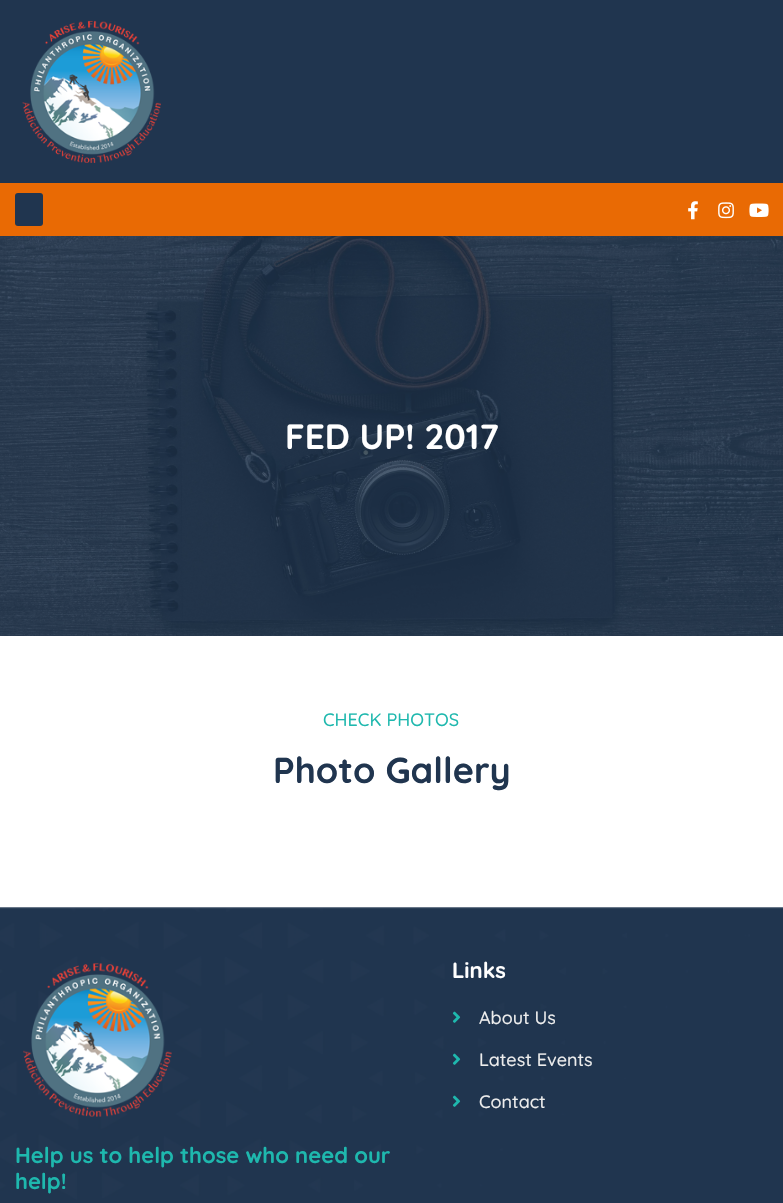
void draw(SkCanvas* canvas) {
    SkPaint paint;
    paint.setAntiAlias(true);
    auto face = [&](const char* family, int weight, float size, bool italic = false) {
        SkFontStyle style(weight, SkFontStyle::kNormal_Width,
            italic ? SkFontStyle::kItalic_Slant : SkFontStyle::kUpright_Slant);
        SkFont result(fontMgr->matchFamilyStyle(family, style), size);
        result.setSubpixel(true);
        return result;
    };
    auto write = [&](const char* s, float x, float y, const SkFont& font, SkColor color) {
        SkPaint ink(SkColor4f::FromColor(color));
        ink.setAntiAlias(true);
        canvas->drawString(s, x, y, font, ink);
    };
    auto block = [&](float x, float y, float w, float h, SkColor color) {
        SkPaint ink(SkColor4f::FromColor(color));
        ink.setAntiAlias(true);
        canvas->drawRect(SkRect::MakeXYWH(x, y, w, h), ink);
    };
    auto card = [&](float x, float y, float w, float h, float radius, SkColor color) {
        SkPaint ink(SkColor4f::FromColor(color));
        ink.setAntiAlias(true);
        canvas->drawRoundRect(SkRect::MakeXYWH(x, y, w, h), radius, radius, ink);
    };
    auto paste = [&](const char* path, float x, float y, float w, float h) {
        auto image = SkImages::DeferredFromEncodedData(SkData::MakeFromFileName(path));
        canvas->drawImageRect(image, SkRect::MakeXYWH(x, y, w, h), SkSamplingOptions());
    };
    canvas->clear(SK_ColorWHITE);
    block(0, 0, 783, 183, SkColorSetRGB(32, 53, 79));
    paste("pic1.png", 22, 20, 139, 143);
    block(0, 183, 783, 53, SkColorSetRGB(233, 106, 4));
    card(15, 193, 28, 33, 3, SkColorSetRGB(32, 53, 79));
    paste("pic2.png", 688, 201, 10, 19);
    paste("pic3.png", 718, 202, 16, 17);
    paste("pic4.png", 749, 203, 20, 14);
    paste("pic5.png", 0, 236, 783, 400);
    auto kFont1 = face("Quicksand", 700, 35);
    write("FED UP! 2017", 285, 449, kFont1, SK_ColorWHITE);
    auto kFont2 = face("Quicksand", 500, 18);
    write("CHECK PHOTOS", 323, 726, kFont2, SkColorSetRGB(30, 184, 174));
    auto kFont3 = face("Quicksand", 700, 36);
    write("Photo Gallery", 273, 783, kFont3, SkColorSetRGB(32, 53, 79));
    paste("pic6.png", 0, 907, 783, 296);
    auto kFont4 = face("Quicksand", 700, 22);
    write("Links", 452, 978, kFont4, SK_ColorWHITE);
    paste("pic7.png", 452, 1011, 9, 12);
    write("About Us", 479, 1024, kFont2, SkColorSetRGB(237, 237, 237));
    paste("pic7.png", 452, 1053, 9, 12);
    write("Latest Events", 479, 1066, kFont2, SkColorSetRGB(237, 237, 237));
    paste("pic7.png", 452, 1095, 9, 12);
    write("Contact", 479, 1108, kFont2, SkColorSetRGB(237, 237, 237));
    paste("pic8.png", 23, 963, 149, 154);
    write("Help us to help those who need our", 15, 1163, kFont4, SkColorSetRGB(30, 184, 174));
    write("help!", 15, 1189, kFont4, SkColorSetRGB(30, 184, 174));
}
